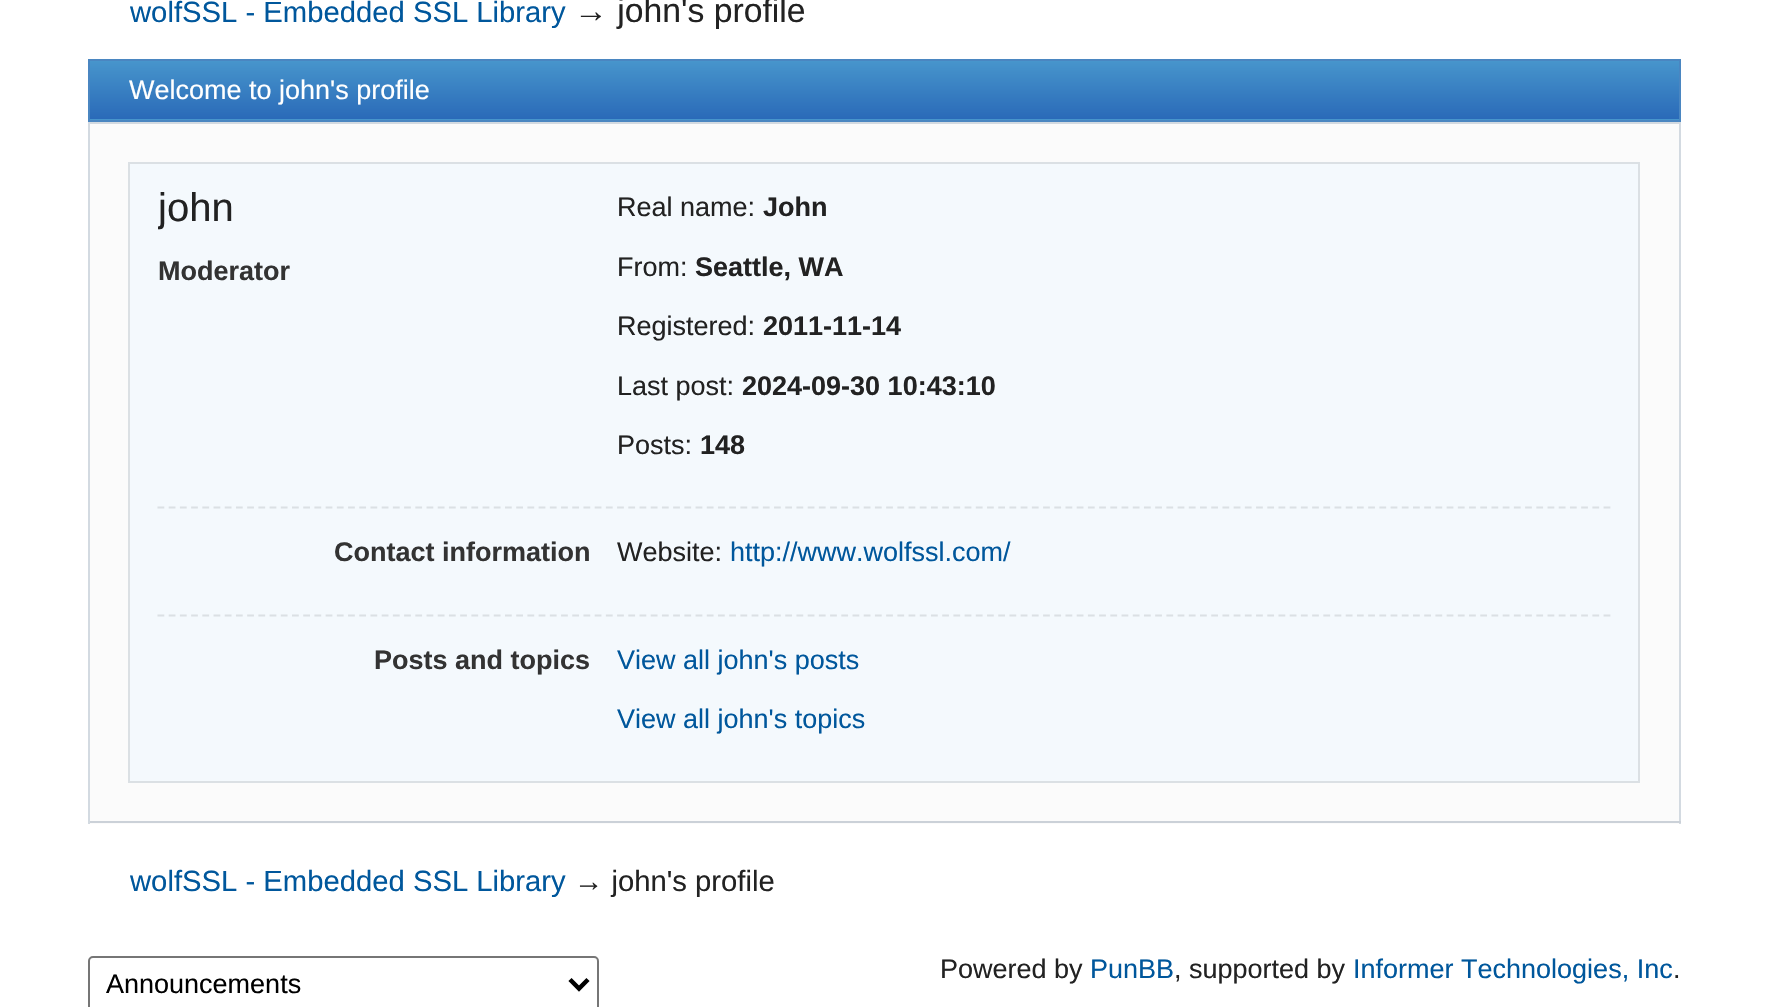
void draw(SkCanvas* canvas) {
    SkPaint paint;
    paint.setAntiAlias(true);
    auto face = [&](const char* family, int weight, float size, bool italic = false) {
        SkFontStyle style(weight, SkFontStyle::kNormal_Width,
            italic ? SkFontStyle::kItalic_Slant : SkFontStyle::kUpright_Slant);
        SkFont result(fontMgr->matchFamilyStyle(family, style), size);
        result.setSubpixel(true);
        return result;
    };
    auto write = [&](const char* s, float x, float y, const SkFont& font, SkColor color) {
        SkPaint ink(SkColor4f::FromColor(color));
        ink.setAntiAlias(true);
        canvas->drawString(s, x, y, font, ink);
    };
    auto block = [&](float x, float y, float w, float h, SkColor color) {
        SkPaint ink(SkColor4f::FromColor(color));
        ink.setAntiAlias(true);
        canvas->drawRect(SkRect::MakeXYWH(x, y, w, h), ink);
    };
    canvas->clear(SK_ColorWHITE);
    auto kFont1 = face("Liberation Sans", 400, 29.25f);
    write("wolfSSL - Embedded SSL Library", 130, 22, kFont1, SkColorSetRGB(0, 87, 156));
    auto kFont2 = face("Liberation Sans", 400, 33.75f);
    write("→ john's profile", 574, 22, kFont2, SkColorSetRGB(34, 34, 34));
    {
        const SkColor colors[] = {SkColorSetRGB(42, 106, 184), SkColorSetRGB(71, 149, 204)};
        const float stops[] = {0, 1};
        const SkPoint ends[] = {{884, 119}, {884, 61}};
        paint.setShader(SkGradientShader::MakeLinear(ends, colors, stops, 2, SkTileMode::kClamp));
        paint.setAlpha(255);
    }
    canvas->drawRect(SkRect::MakeXYWH(90, 61, 1589, 58), paint);
    {
        const SkColor colors[] = {SkColorSetRGB(42, 106, 184), SkColorSetRGB(71, 149, 204)};
        const float stops[] = {0, 1};
        const SkPoint ends[] = {{884, 178}, {884, 119}};
        paint.setShader(SkGradientShader::MakeLinear(ends, colors, stops, 2, SkTileMode::kClamp));
        paint.setAlpha(255);
    }
    canvas->drawRect(SkRect::MakeXYWH(88, 119, 1593, 1), paint);
    paint.setStyle(SkPaint::kStroke_Style);
    paint.setStrokeWidth(2);
    paint.setShader(nullptr);
    paint.setColor(SkColorSetRGB(74, 134, 193));
    canvas->drawRect(SkRect::MakeXYWH(89, 60, 1591, 61), paint);
    auto kFont3 = face("Liberation Sans", 400, 27);
    write("Welcome to john's profile", 129, 99, kFont3, SK_ColorWHITE);
    block(90, 124, 1589, 700, SkColorSetRGB(251, 251, 251));
    block(88, 122, 1593, 2, SkColorSetRGB(211, 218, 225));
    block(1679, 122, 2, 702, SkColorSetRGB(211, 218, 225));
    block(88, 821, 1593, 2, SkColorSetRGB(203, 209, 216));
    block(88, 122, 2, 702, SkColorSetRGB(211, 218, 225));
    paint.setStyle(SkPaint::kFill_Style);
    paint.setColor(SkColorSetRGB(244, 249, 253));
    canvas->drawRect(SkRect::MakeXYWH(129, 163, 1510, 619), paint);
    paint.setStyle(SkPaint::kStroke_Style);
    paint.setColor(SkColorSetRGB(219, 224, 228));
    canvas->drawRect(SkRect::MakeXYWH(129, 163, 1510, 619), paint);
    canvas->save();
    canvas->clipRect(SkRect::MakeXYWH(158, 187, 432, 45));
    auto kFont4 = face("Liberation Sans", 400, 40);
    write("john", 158, 221, kFont4, SkColorSetRGB(34, 34, 34));
    canvas->restore();
    auto kFont5 = face("Liberation Sans", 700, 27);
    write("Moderator", 158, 280, kFont5, SkColorSetRGB(51, 51, 51));
    write("Real name:", 617, 216, kFont3, SkColorSetRGB(34, 34, 34));
    write("John", 763, 216, kFont5, SkColorSetRGB(34, 34, 34));
    write("From:", 617, 276, kFont3, SkColorSetRGB(34, 34, 34));
    write("Seattle, WA", 695, 276, kFont5, SkColorSetRGB(34, 34, 34));
    write("Registered:", 617, 335, kFont3, SkColorSetRGB(34, 34, 34));
    write("2011-11-14", 763, 335, kFont5, SkColorSetRGB(34, 34, 34));
    write("Last post:", 617, 395, kFont3, SkColorSetRGB(34, 34, 34));
    write("2024-09-30 10:43:10", 742, 395, kFont5, SkColorSetRGB(34, 34, 34));
    write("Posts:", 617, 454, kFont3, SkColorSetRGB(34, 34, 34));
    write("148", 700, 454, kFont5, SkColorSetRGB(34, 34, 34));
    paint.setStrokeWidth(2.2f);
    paint.setPathEffect(SkDashPathEffect::Make({{6.75f, 4.46f}}, 0));
    canvas->drawPath(SkPathBuilder().moveTo(157.5f, 507.5f).lineTo(1611, 507.5f).detach(), paint);
    paint.setPathEffect(nullptr);
    write("Contact information", 334, 561, kFont5, SkColorSetRGB(51, 51, 51));
    write("Website:", 617, 561, kFont3, SkColorSetRGB(34, 34, 34));
    write("http://www.wolfssl.com/", 730, 561, kFont3, SkColorSetRGB(0, 87, 156));
    paint.setPathEffect(SkDashPathEffect::Make({{6.75f, 4.46f}}, 0));
    canvas->drawPath(SkPathBuilder().moveTo(157.5f, 615.5f).lineTo(1611, 615.5f).detach(), paint);
    paint.setPathEffect(nullptr);
    write("Posts and topics", 374, 669, kFont5, SkColorSetRGB(51, 51, 51));
    write("View all john's posts", 617, 669, kFont3, SkColorSetRGB(0, 87, 156));
    write("View all john's topics", 617, 728, kFont3, SkColorSetRGB(0, 87, 156));
    write("wolfSSL - Embedded SSL Library", 130, 891, kFont1, SkColorSetRGB(0, 87, 156));
    write("→ john's profile", 574, 891, kFont1, SkColorSetRGB(34, 34, 34));
    paint.setStrokeWidth(2);
    paint.setColor(SkColorSetRGB(118, 118, 118));
    canvas->drawRoundRect(SkRect::MakeXYWH(89, 957, 509, 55), 4, 4, paint);
    paint.setStrokeWidth(4.5f);
    paint.setColor(SK_ColorBLACK);
    canvas->drawPath(SkPathBuilder().moveTo(570, 979.5f).lineTo(579, 988.5f).lineTo(588, 979.5f).detach(), paint);
    write("Announcements", 106, 993, kFont3, SK_ColorBLACK);
    write("Powered by", 940, 978, kFont3, SkColorSetRGB(34, 34, 34));
    write("PunBB", 1090, 978, kFont3, SkColorSetRGB(0, 87, 156));
    write(", supported by", 1174, 978, kFont3, SkColorSetRGB(34, 34, 34));
    write("Informer Technologies, Inc", 1353, 978, kFont3, SkColorSetRGB(0, 87, 156));
    write(".", 1673, 978, kFont3, SkColorSetRGB(34, 34, 34));
}
